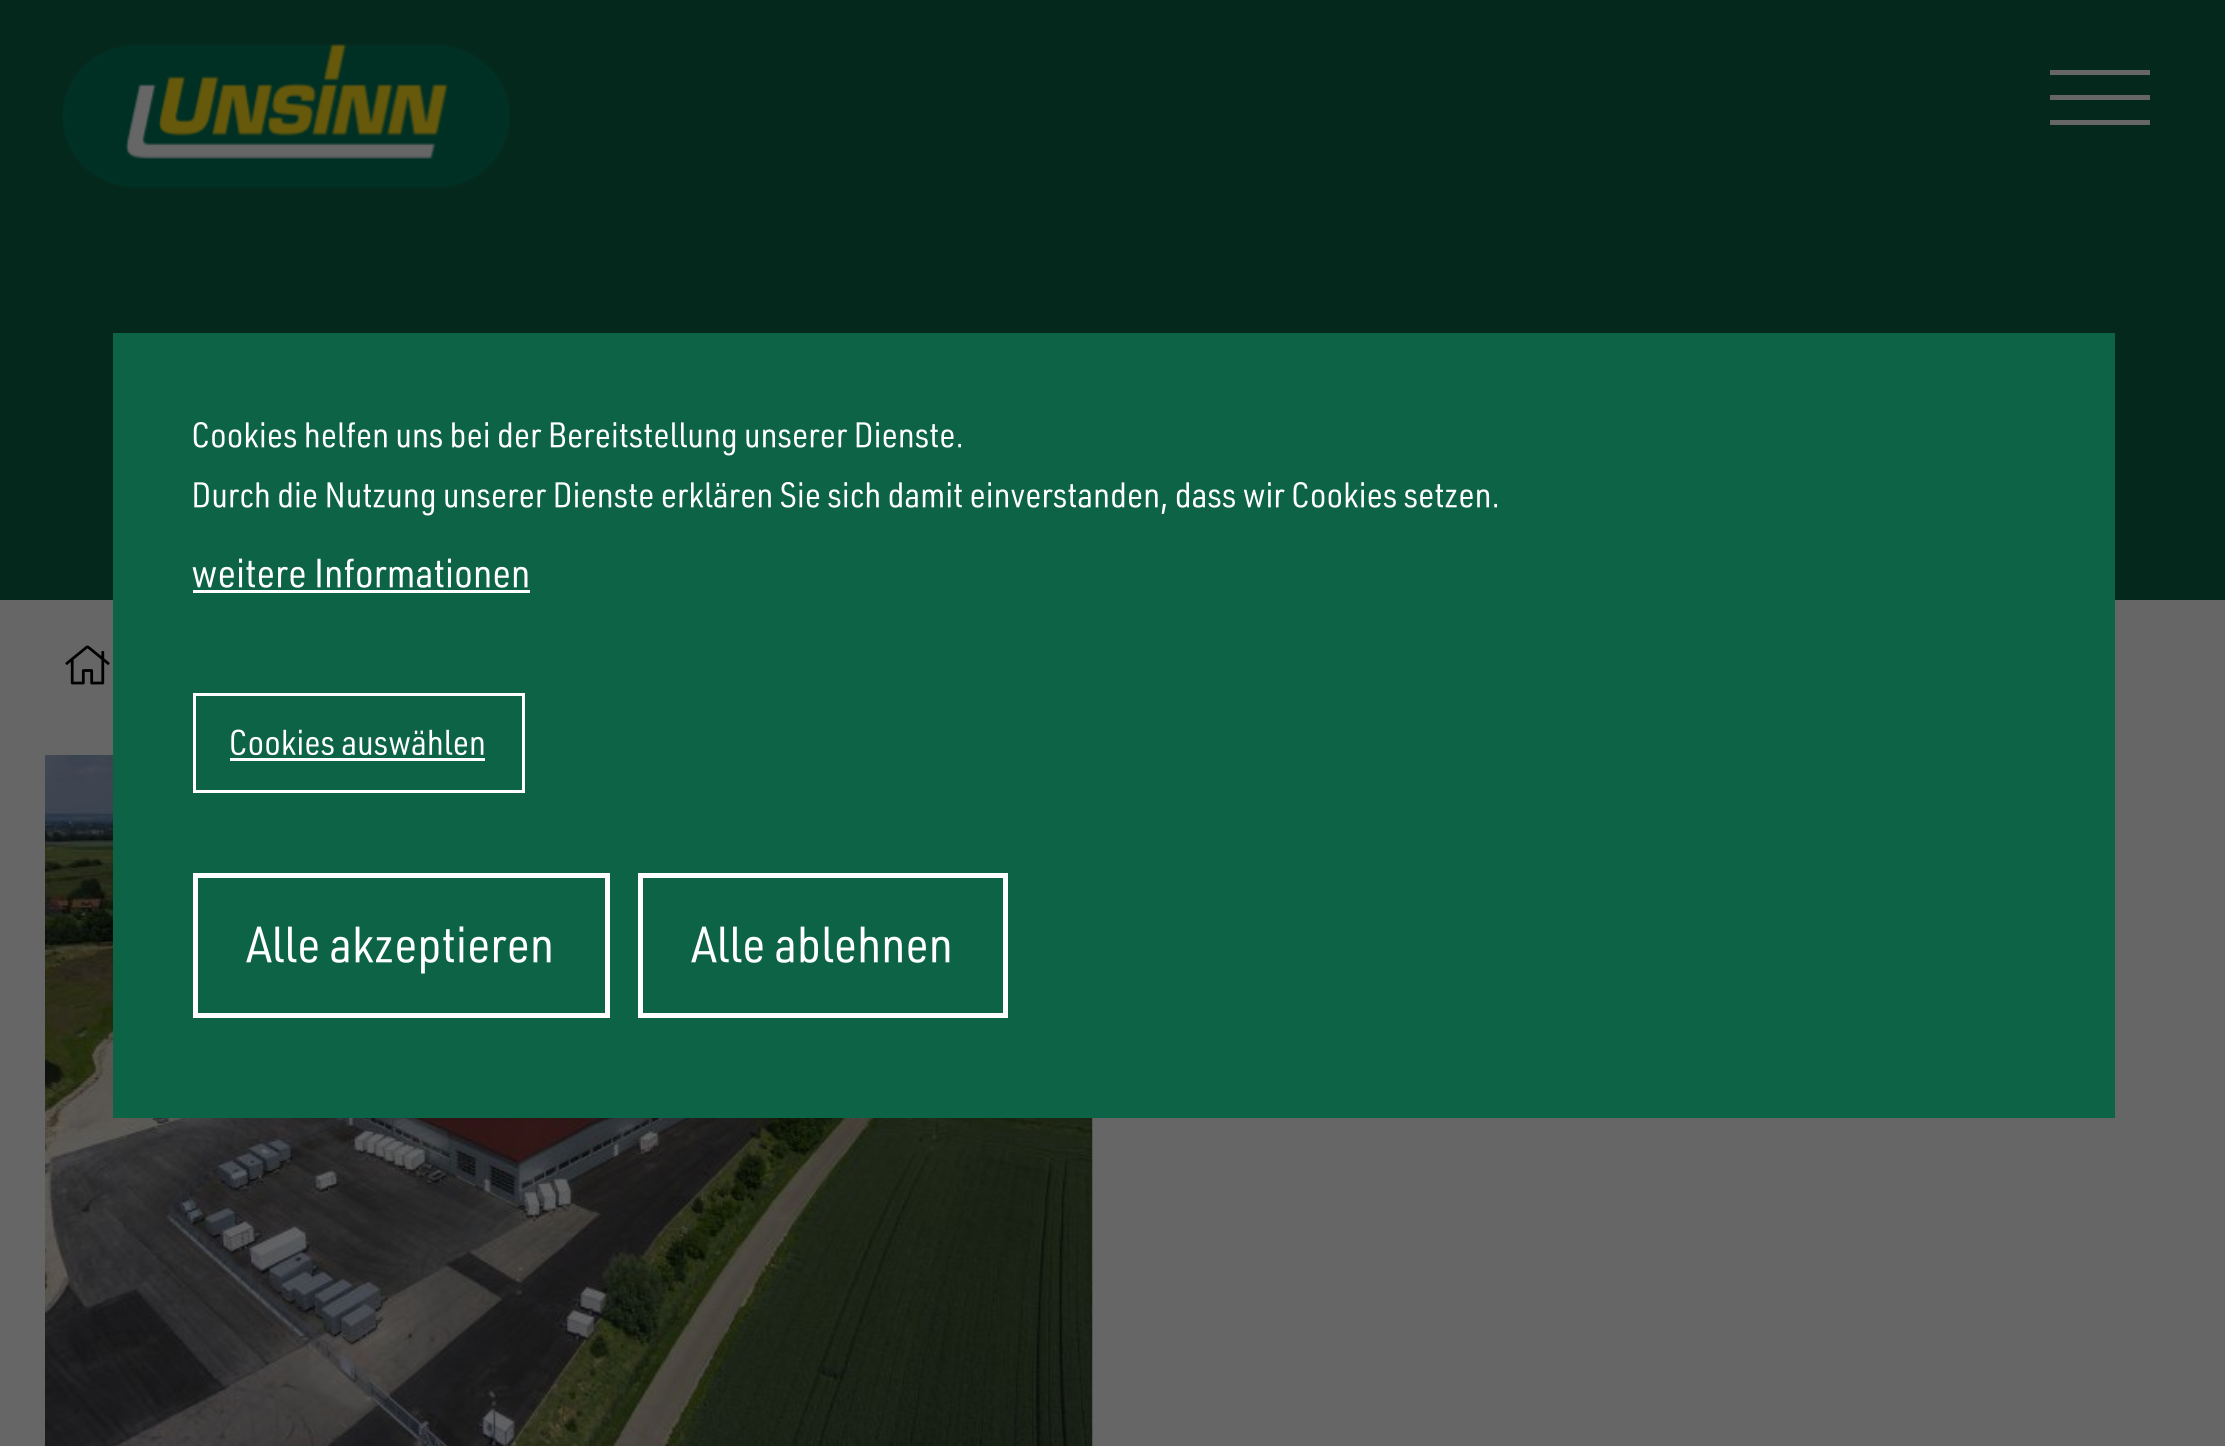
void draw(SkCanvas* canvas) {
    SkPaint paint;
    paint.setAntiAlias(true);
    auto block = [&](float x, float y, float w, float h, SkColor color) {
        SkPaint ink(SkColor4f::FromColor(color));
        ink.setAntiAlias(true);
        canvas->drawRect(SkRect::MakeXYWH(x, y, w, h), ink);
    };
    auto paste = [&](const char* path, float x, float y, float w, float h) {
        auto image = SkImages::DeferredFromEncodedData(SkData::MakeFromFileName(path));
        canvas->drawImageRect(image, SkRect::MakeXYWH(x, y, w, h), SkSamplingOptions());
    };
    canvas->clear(SkColorSetRGB(102, 102, 102));
    block(0, 0, 2225, 600, SkColorSetRGB(5, 40, 28));
    paste("pic1.png", 62, 43, 448, 145);
    block(2050, 70, 100, 5, SkColorSetRGB(102, 102, 102));
    block(2050, 95, 100, 5, SkColorSetRGB(102, 102, 102));
    block(2050, 120, 100, 5, SkColorSetRGB(102, 102, 102));
    paste("pic2.png", 65, 645, 45, 40);
    paste("pic3.png", 45, 755, 1048, 691);
    block(113, 333, 2002, 785, SkColorSetRGB(13, 99, 69));
    paste("pic4.png", 193, 422, 768, 34);
    paste("pic5.png", 194, 482, 1304, 34);
    paste("pic6.png", 192, 558, 336, 30);
    block(193, 590, 337, 3, SK_ColorWHITE);
    paint.setStyle(SkPaint::kStroke_Style);
    paint.setStrokeWidth(3);
    paint.setColor(SK_ColorWHITE);
    canvas->drawRect(SkRect::MakeXYWH(194.5f, 694.5f, 329, 97), paint);
    paste("pic7.png", 231, 729, 253, 27);
    block(230, 758, 255, 3, SK_ColorWHITE);
    paint.setStrokeWidth(5);
    canvas->drawRect(SkRect::MakeXYWH(195.5f, 875.5f, 412, 140), paint);
    paste("pic8.png", 246, 926, 305, 48);
    canvas->drawRect(SkRect::MakeXYWH(640.5f, 875.5f, 365, 140), paint);
    paste("pic9.png", 691, 926, 259, 37);
}
